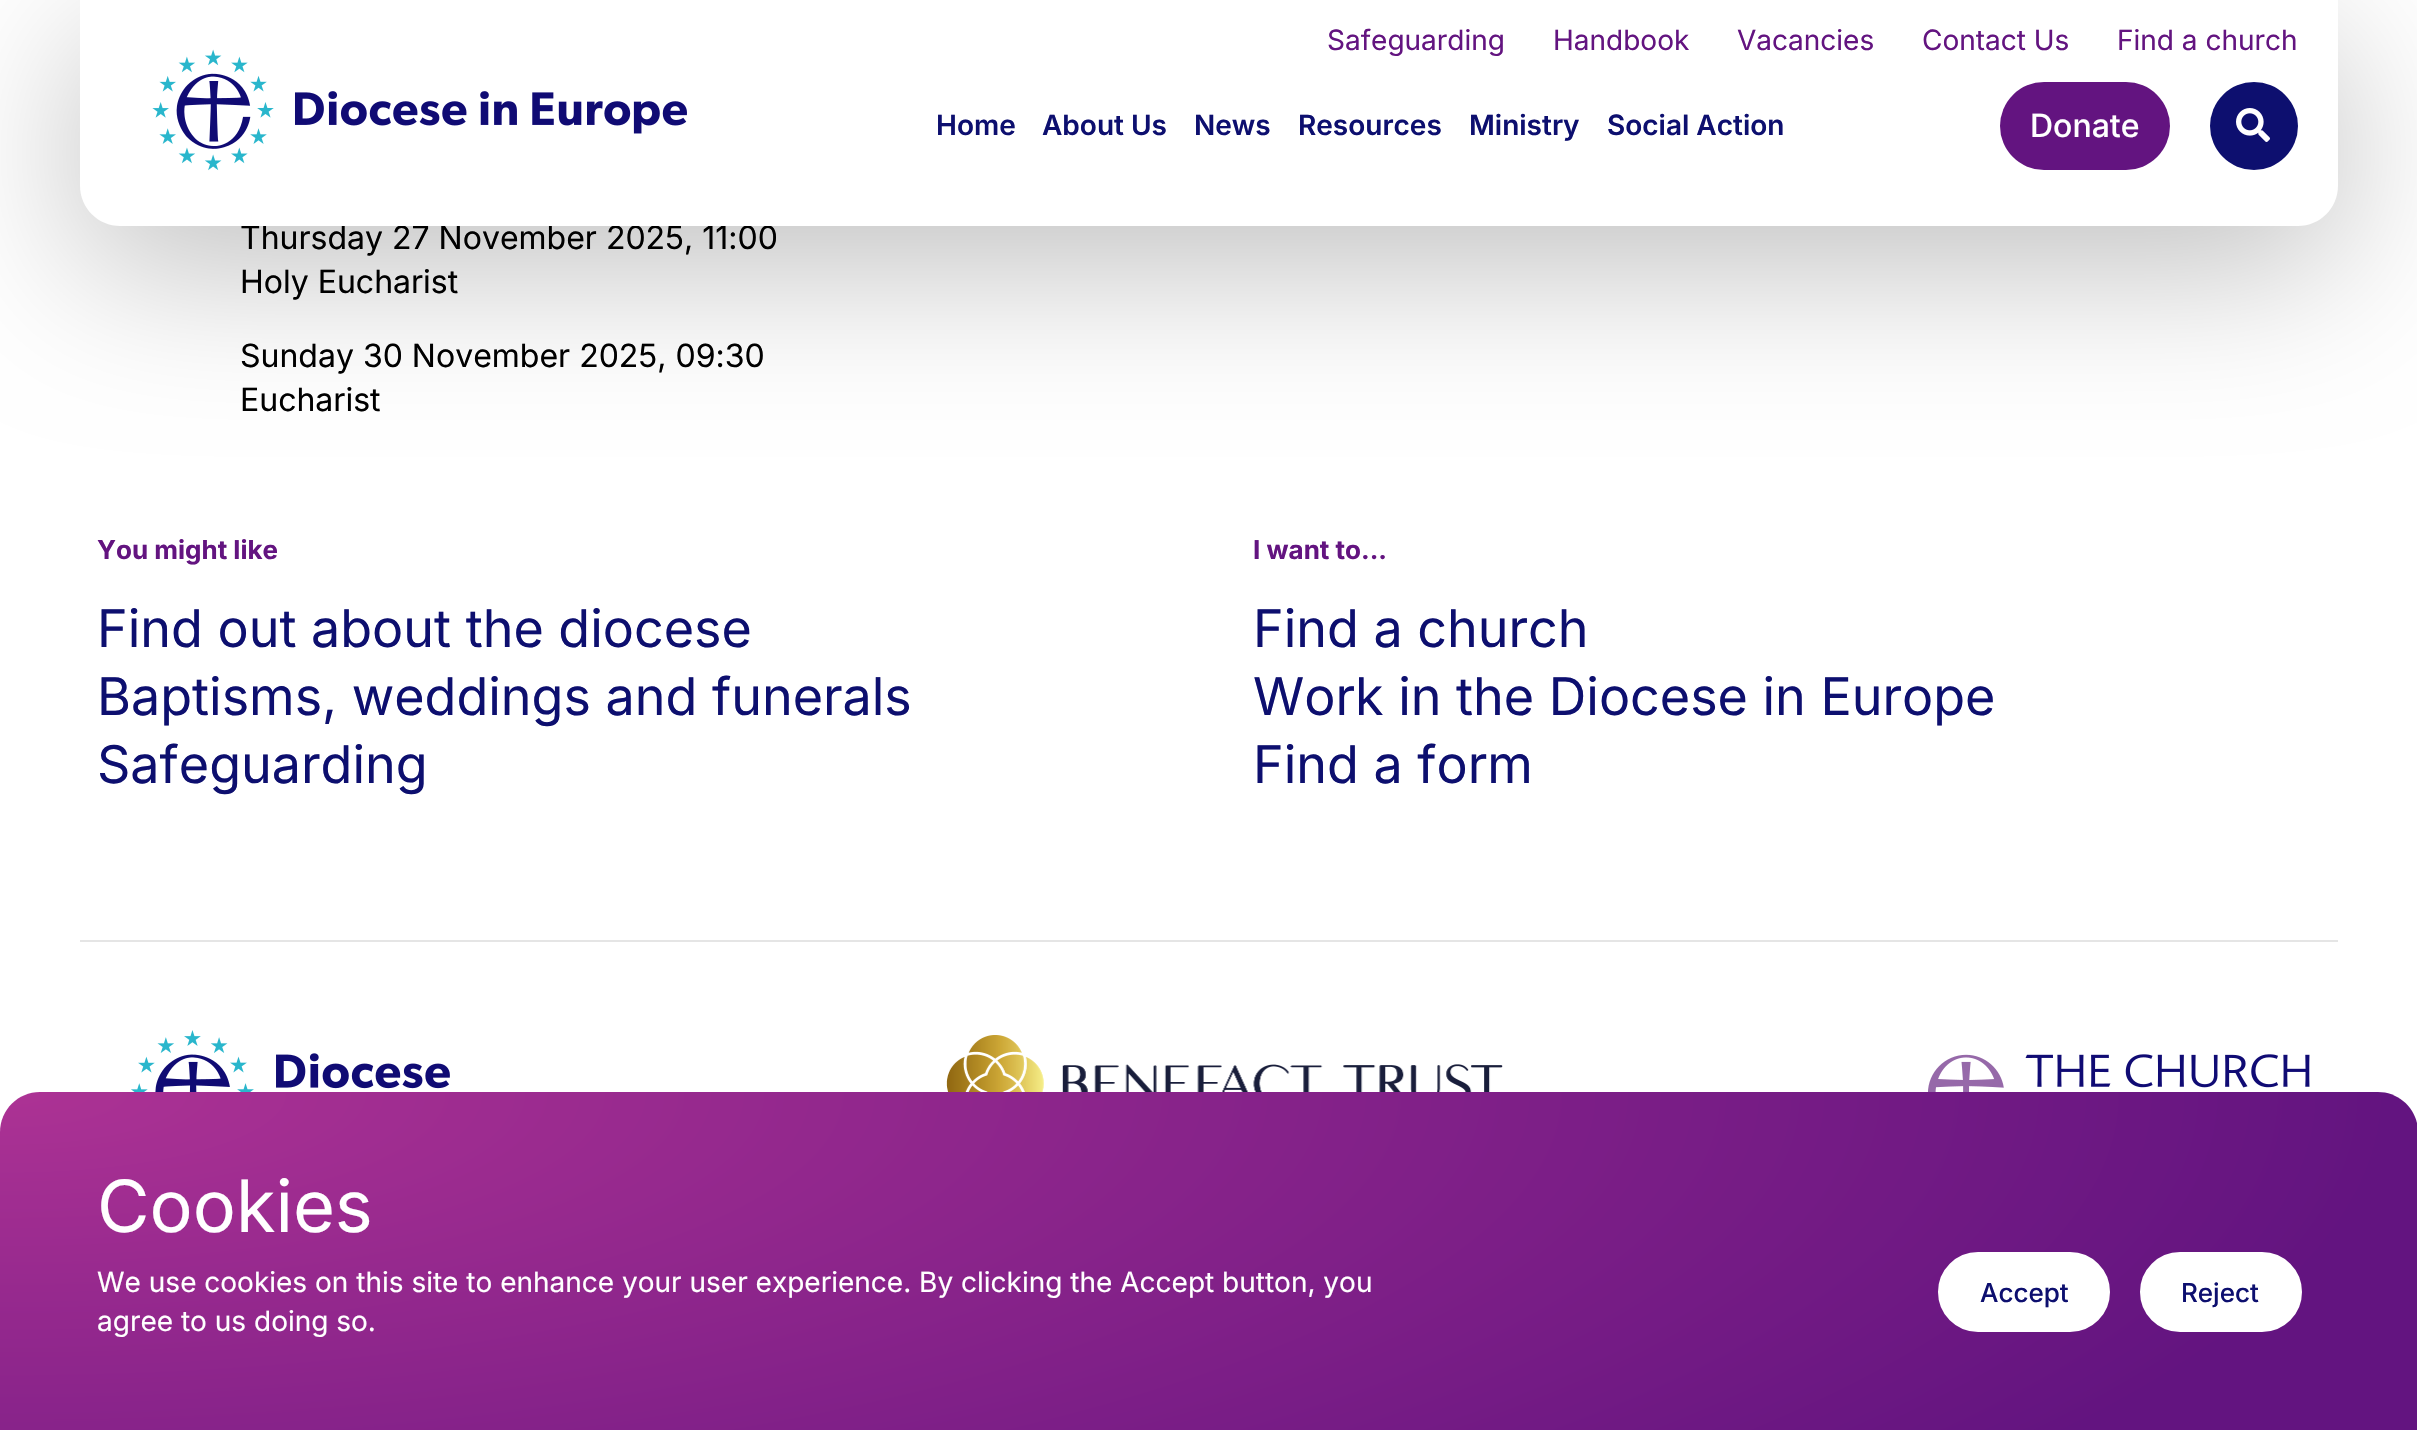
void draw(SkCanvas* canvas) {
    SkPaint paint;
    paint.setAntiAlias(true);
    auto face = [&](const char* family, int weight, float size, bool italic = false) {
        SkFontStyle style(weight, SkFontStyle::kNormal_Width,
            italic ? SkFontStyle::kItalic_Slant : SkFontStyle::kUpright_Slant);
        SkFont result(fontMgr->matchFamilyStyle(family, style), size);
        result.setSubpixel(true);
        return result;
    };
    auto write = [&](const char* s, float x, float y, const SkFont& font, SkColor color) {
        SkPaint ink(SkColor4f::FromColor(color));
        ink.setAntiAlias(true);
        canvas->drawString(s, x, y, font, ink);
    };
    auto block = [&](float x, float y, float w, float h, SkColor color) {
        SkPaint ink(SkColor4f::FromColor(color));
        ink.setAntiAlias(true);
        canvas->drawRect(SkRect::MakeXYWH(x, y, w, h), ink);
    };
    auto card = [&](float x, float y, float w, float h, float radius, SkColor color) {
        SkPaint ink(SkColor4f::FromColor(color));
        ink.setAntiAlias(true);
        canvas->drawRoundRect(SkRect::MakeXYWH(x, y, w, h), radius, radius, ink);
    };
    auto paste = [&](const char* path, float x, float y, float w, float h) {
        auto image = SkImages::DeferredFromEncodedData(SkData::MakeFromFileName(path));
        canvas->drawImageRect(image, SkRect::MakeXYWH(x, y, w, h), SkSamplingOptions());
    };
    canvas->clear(SK_ColorWHITE);
    paint.setColor(SkColorSetARGB(64, 0, 0, 0));
    paint.setMaskFilter(SkMaskFilter::MakeBlur(kNormal_SkBlurStyle, 80));
    canvas->drawRoundRect(SkRect::MakeXYWH(80, 40, 2258, 226), 40, 40, paint);
    paint.setMaskFilter(nullptr);
    auto kFont1 = face("Inter", 400, 32);
    write("Thursday 27 November 2025, 11:00", 240, 249, kFont1, SK_ColorBLACK);
    paint.setColor(SK_ColorWHITE);
    canvas->drawPath(SkPathBuilder().moveTo(80, 0).lineTo(2338, 0).lineTo(2338, 186).cubicTo(2338, 208, 2320, 226, 2298, 226).lineTo(120, 226).cubicTo(98, 226, 80, 208, 80, 186).close().detach(), paint);
    auto kFont2 = face("Inter", 400, 28);
    write("Safeguarding", 1327, 50, kFont2, SkColorSetRGB(99, 20, 128));
    write("Handbook", 1553, 50, kFont2, SkColorSetRGB(99, 20, 128));
    write("Vacancies", 1737, 50, kFont2, SkColorSetRGB(99, 20, 128));
    write("Contact Us", 1922, 50, kFont2, SkColorSetRGB(99, 20, 128));
    write("Find a church", 2117, 50, kFont2, SkColorSetRGB(99, 20, 128));
    paste("pic1.png", 152, 49, 535, 122);
    auto kFont3 = face("Inter", 600, 28);
    write("Home", 936, 135, kFont3, SkColorSetRGB(13, 15, 111));
    write("About Us", 1042, 135, kFont3, SkColorSetRGB(13, 15, 111));
    write("News", 1194, 135, kFont3, SkColorSetRGB(13, 15, 111));
    write("Resources", 1298, 135, kFont3, SkColorSetRGB(13, 15, 111));
    write("Ministry", 1469, 135, kFont3, SkColorSetRGB(13, 15, 111));
    write("Social Action", 1607, 135, kFont3, SkColorSetRGB(13, 15, 111));
    card(2000, 82, 170, 88, 44, SkColorSetRGB(99, 20, 128));
    auto kFont4 = face("Inter", 500, 32);
    write("Donate", 2030, 137, kFont4, SK_ColorWHITE);
    paint.setColor(SkColorSetRGB(13, 15, 111));
    canvas->drawCircle(2254, 126, 44, paint);
    paste("pic2.png", 2236, 108, 34, 34);
    write("Holy Eucharist", 240, 293, kFont1, SK_ColorBLACK);
    write("Sunday 30 November 2025, 09:30", 240, 367, kFont1, SK_ColorBLACK);
    write("Eucharist", 240, 411, kFont1, SK_ColorBLACK);
    block(80, 940, 2258, 2, SkColorSetRGB(229, 229, 229));
    auto kFont5 = face("Inter", 700, 26);
    write("You might like", 97, 559, kFont5, SkColorSetRGB(99, 20, 128));
    auto kFont6 = face("Inter", 400, 52);
    write("Find out about the diocese", 97, 647, kFont6, SkColorSetRGB(13, 15, 111));
    write("Baptisms, weddings and funerals", 97, 715, kFont6, SkColorSetRGB(13, 15, 111));
    write("Safeguarding", 97, 783, kFont6, SkColorSetRGB(13, 15, 111));
    write("I want to...", 1253, 559, kFont5, SkColorSetRGB(99, 20, 128));
    write("Find a church", 1253, 647, kFont6, SkColorSetRGB(13, 15, 111));
    write("Work in the Diocese in Europe", 1253, 715, kFont6, SkColorSetRGB(13, 15, 111));
    write("Find a form", 1253, 783, kFont6, SkColorSetRGB(13, 15, 111));
    paste("pic3.png", 131, 1030, 319, 62);
    paste("pic4.png", 946, 1035, 557, 57);
    paste("pic5.png", 1928, 1054, 382, 38);
    {
        const SkColor colors[] = {SkColorSetRGB(172, 50, 148), SkColorSetRGB(99, 20, 128)};
        const float stops[] = {0, 1};
        SkMatrix m = SkMatrix::Translate(7.3f, 1094).preScale(2390, 674);
        paint.setShader(SkGradientShader::MakeRadial({0, 0}, 1, colors, stops, 2, SkTileMode::kClamp, 0, &m));
        paint.setAlpha(255);
    }
    canvas->drawPath(SkPathBuilder().moveTo(40, 1092).lineTo(2378, 1092).cubicTo(2400, 1092, 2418, 1110, 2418, 1132).lineTo(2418, 1430).lineTo(0, 1430).lineTo(0, 1132).cubicTo(0, 1110, 18, 1092, 40, 1092).close().detach(), paint);
    auto kFont7 = face("Inter", 400, 72);
    write("Cookies", 97, 1232, kFont7, SK_ColorWHITE);
    write("We use cookies on this site to enhance your user experience. By clicking the Accept button, you", 97, 1292, kFont2, SK_ColorWHITE);
    write("agree to us doing so.", 97, 1331, kFont2, SK_ColorWHITE);
    paint.setShader(nullptr);
    paint.setColor(SK_ColorWHITE);
    canvas->drawRoundRect(SkRect::MakeXYWH(1939, 1253, 170, 78), 39, 39, paint);
    paint.setStyle(SkPaint::kStroke_Style);
    paint.setStrokeWidth(2);
    canvas->drawRoundRect(SkRect::MakeXYWH(1939, 1253, 170, 78), 39, 39, paint);
    auto kFont8 = face("Inter", 500, 26);
    write("Accept", 1980, 1302, kFont8, SkColorSetRGB(13, 15, 111));
    paint.setStyle(SkPaint::kFill_Style);
    canvas->drawRoundRect(SkRect::MakeXYWH(2141, 1253, 160, 78), 39, 39, paint);
    paint.setStyle(SkPaint::kStroke_Style);
    canvas->drawRoundRect(SkRect::MakeXYWH(2141, 1253, 160, 78), 39, 39, paint);
    write("Reject", 2181, 1302, kFont8, SkColorSetRGB(13, 15, 111));
}
